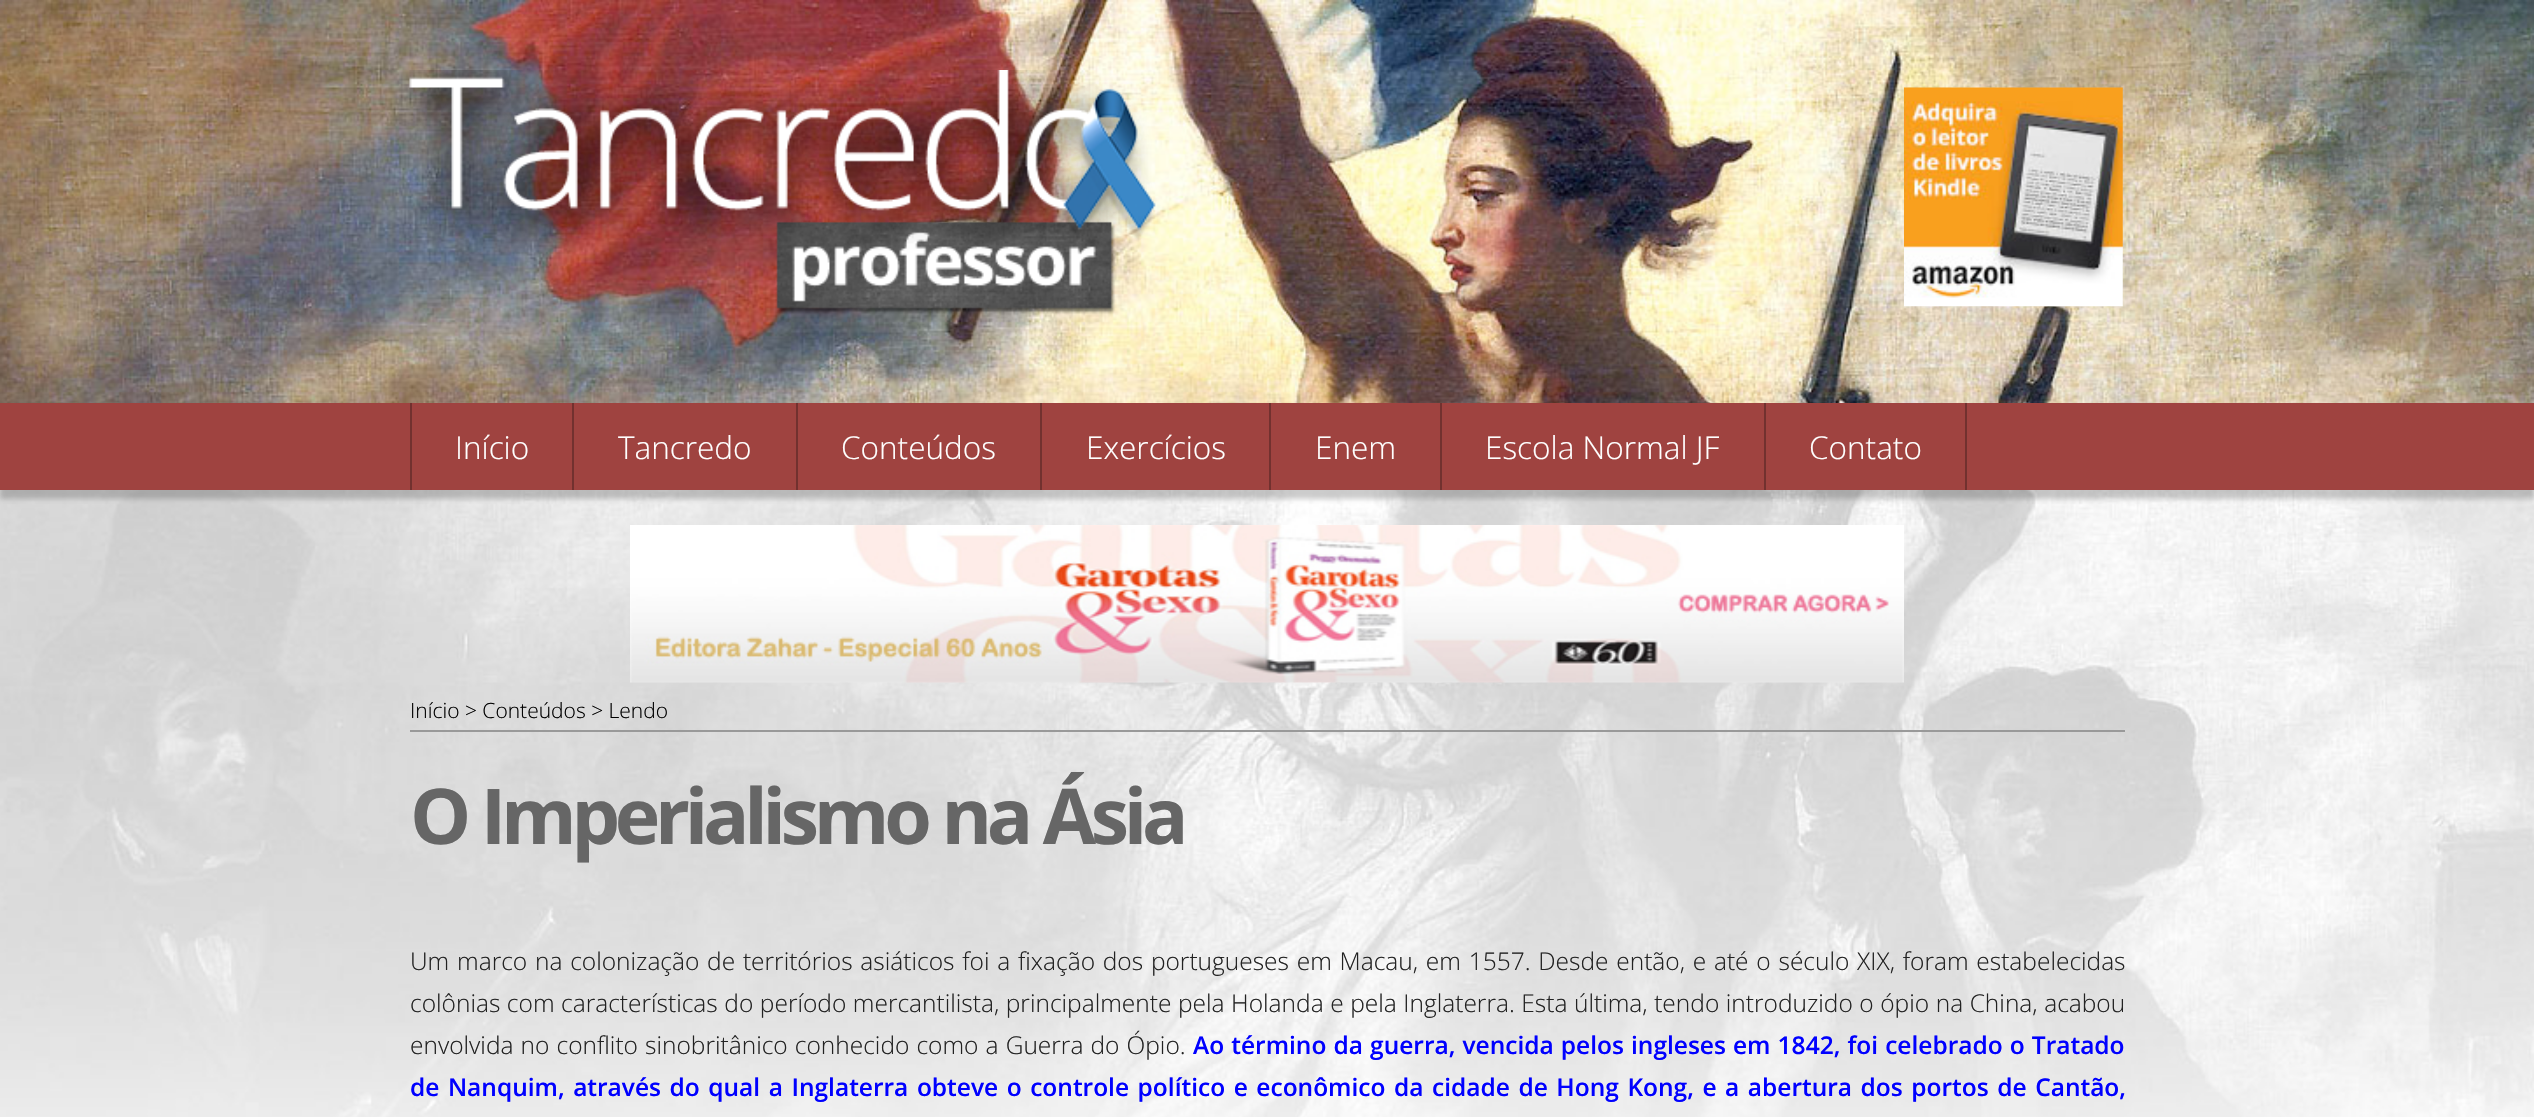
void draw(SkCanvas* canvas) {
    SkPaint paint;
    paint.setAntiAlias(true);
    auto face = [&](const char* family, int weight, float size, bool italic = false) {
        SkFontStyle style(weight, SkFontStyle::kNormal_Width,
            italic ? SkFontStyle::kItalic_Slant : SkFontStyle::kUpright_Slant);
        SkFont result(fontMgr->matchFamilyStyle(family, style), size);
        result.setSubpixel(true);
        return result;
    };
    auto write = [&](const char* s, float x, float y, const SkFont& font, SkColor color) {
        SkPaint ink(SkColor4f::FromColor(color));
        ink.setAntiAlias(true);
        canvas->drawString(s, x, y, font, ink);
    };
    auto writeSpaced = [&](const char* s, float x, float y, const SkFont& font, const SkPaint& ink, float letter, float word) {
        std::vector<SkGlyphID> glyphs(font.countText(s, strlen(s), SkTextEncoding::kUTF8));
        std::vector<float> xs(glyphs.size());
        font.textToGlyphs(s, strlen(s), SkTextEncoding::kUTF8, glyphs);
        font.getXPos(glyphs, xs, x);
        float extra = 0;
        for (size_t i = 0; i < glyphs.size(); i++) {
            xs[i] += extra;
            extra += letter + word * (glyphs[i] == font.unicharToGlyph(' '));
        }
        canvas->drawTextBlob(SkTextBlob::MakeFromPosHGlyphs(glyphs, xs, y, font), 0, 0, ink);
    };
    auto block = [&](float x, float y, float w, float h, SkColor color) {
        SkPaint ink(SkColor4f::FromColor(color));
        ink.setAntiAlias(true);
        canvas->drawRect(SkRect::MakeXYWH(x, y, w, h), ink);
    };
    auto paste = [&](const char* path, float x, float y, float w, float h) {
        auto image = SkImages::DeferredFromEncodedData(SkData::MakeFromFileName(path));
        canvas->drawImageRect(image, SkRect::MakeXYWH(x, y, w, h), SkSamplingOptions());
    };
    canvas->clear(SK_ColorWHITE);
    paste("pic1.png", 0, 0, 2534, 1117);
    paste("pic2.png", 409, 70, 747, 244);
    paste("pic3.png", 1904, 87, 219, 220);
    paint.setColor(SkColorSetARGB(64, 50, 50, 50));
    paint.setMaskFilter(SkMaskFilter::MakeBlur(kNormal_SkBlurStyle, 2.5f));
    canvas->drawRect(SkRect::MakeXYWH(0, 411, 2534, 88), paint);
    paint.setMaskFilter(nullptr);
    block(0, 403, 2534, 87, SkColorSetRGB(159, 67, 64));
    block(572, 403, 2, 87, SkColorSetRGB(114, 49, 47));
    block(410, 403, 2, 87, SkColorSetRGB(114, 49, 47));
    auto kFont1 = face("Open Sans", 300, 31.5f);
    write("Início", 455, 459, kFont1, SK_ColorWHITE);
    block(796, 403, 2, 87, SkColorSetRGB(114, 49, 47));
    write("Tancredo", 618, 459, kFont1, SK_ColorWHITE);
    block(1040, 403, 2, 87, SkColorSetRGB(114, 49, 47));
    write("Conteúdos", 841, 459, kFont1, SK_ColorWHITE);
    block(1269, 403, 2, 87, SkColorSetRGB(114, 49, 47));
    write("Exercícios", 1086, 459, kFont1, SK_ColorWHITE);
    block(1440, 403, 2, 87, SkColorSetRGB(114, 49, 47));
    write("Enem", 1315, 459, kFont1, SK_ColorWHITE);
    block(1764, 403, 2, 87, SkColorSetRGB(114, 49, 47));
    write("Escola Normal JF", 1485, 459, kFont1, SK_ColorWHITE);
    block(1965, 403, 2, 87, SkColorSetRGB(114, 49, 47));
    write("Contato", 1809, 459, kFont1, SK_ColorWHITE);
    paste("pic4.png", 630, 525, 1274, 158);
    block(410, 730, 1715, 2, SkColorSetRGB(153, 153, 153));
    auto kFont2 = face("Open Sans", 300, 21);
    write("Início > Conteúdos > Lendo", 410, 718, kFont2, SK_ColorBLACK);
    auto kFont3 = face("Open Sans", 700, 77);
    paint.setColor(SkColorSetRGB(102, 102, 102));
    writeSpaced("O Imperialismo na Ásia", 410, 844, kFont3, paint, -5.25f, 0);
    auto kFont4 = face("Open Sans", 300, 24.5f);
    paint.setColor(SkColorSetRGB(34, 34, 34));
    writeSpaced("Um marco na colonização de territórios asiáticos foi a fixação dos portugueses em Macau, em 1557. Desde então, e até o século XIX, foram estabelecidas", 410, 970, kFont4, paint, 0, 1.4f);
    writeSpaced("colônias com características do período mercantilista, principalmente pela Holanda e pela Inglaterra. Esta última, tendo introduzido o ópio na China, acabou", 410, 1012, kFont4, paint, 0, 0.2f);
    writeSpaced("envolvida no conflito sinobritânico conhecido como a Guerra do Ópio.", 410, 1054, kFont4, paint, 0, 0.75f);
    auto kFont5 = face("Open Sans", 600, 24.5f);
    paint.setColor(SkColorSetRGB(0, 0, 255));
    writeSpaced("Ao término da guerra, vencida pelos ingleses em 1842, foi celebrado o Tratado", 1193, 1054, kFont5, paint, 0, 0.75f);
    writeSpaced("de Nanquim, através do qual a Inglaterra obteve o controle político e econômico da cidade de Hong Kong, e a abertura dos portos de Cantão,", 410, 1096, kFont5, paint, 0, 2.2f);
}
